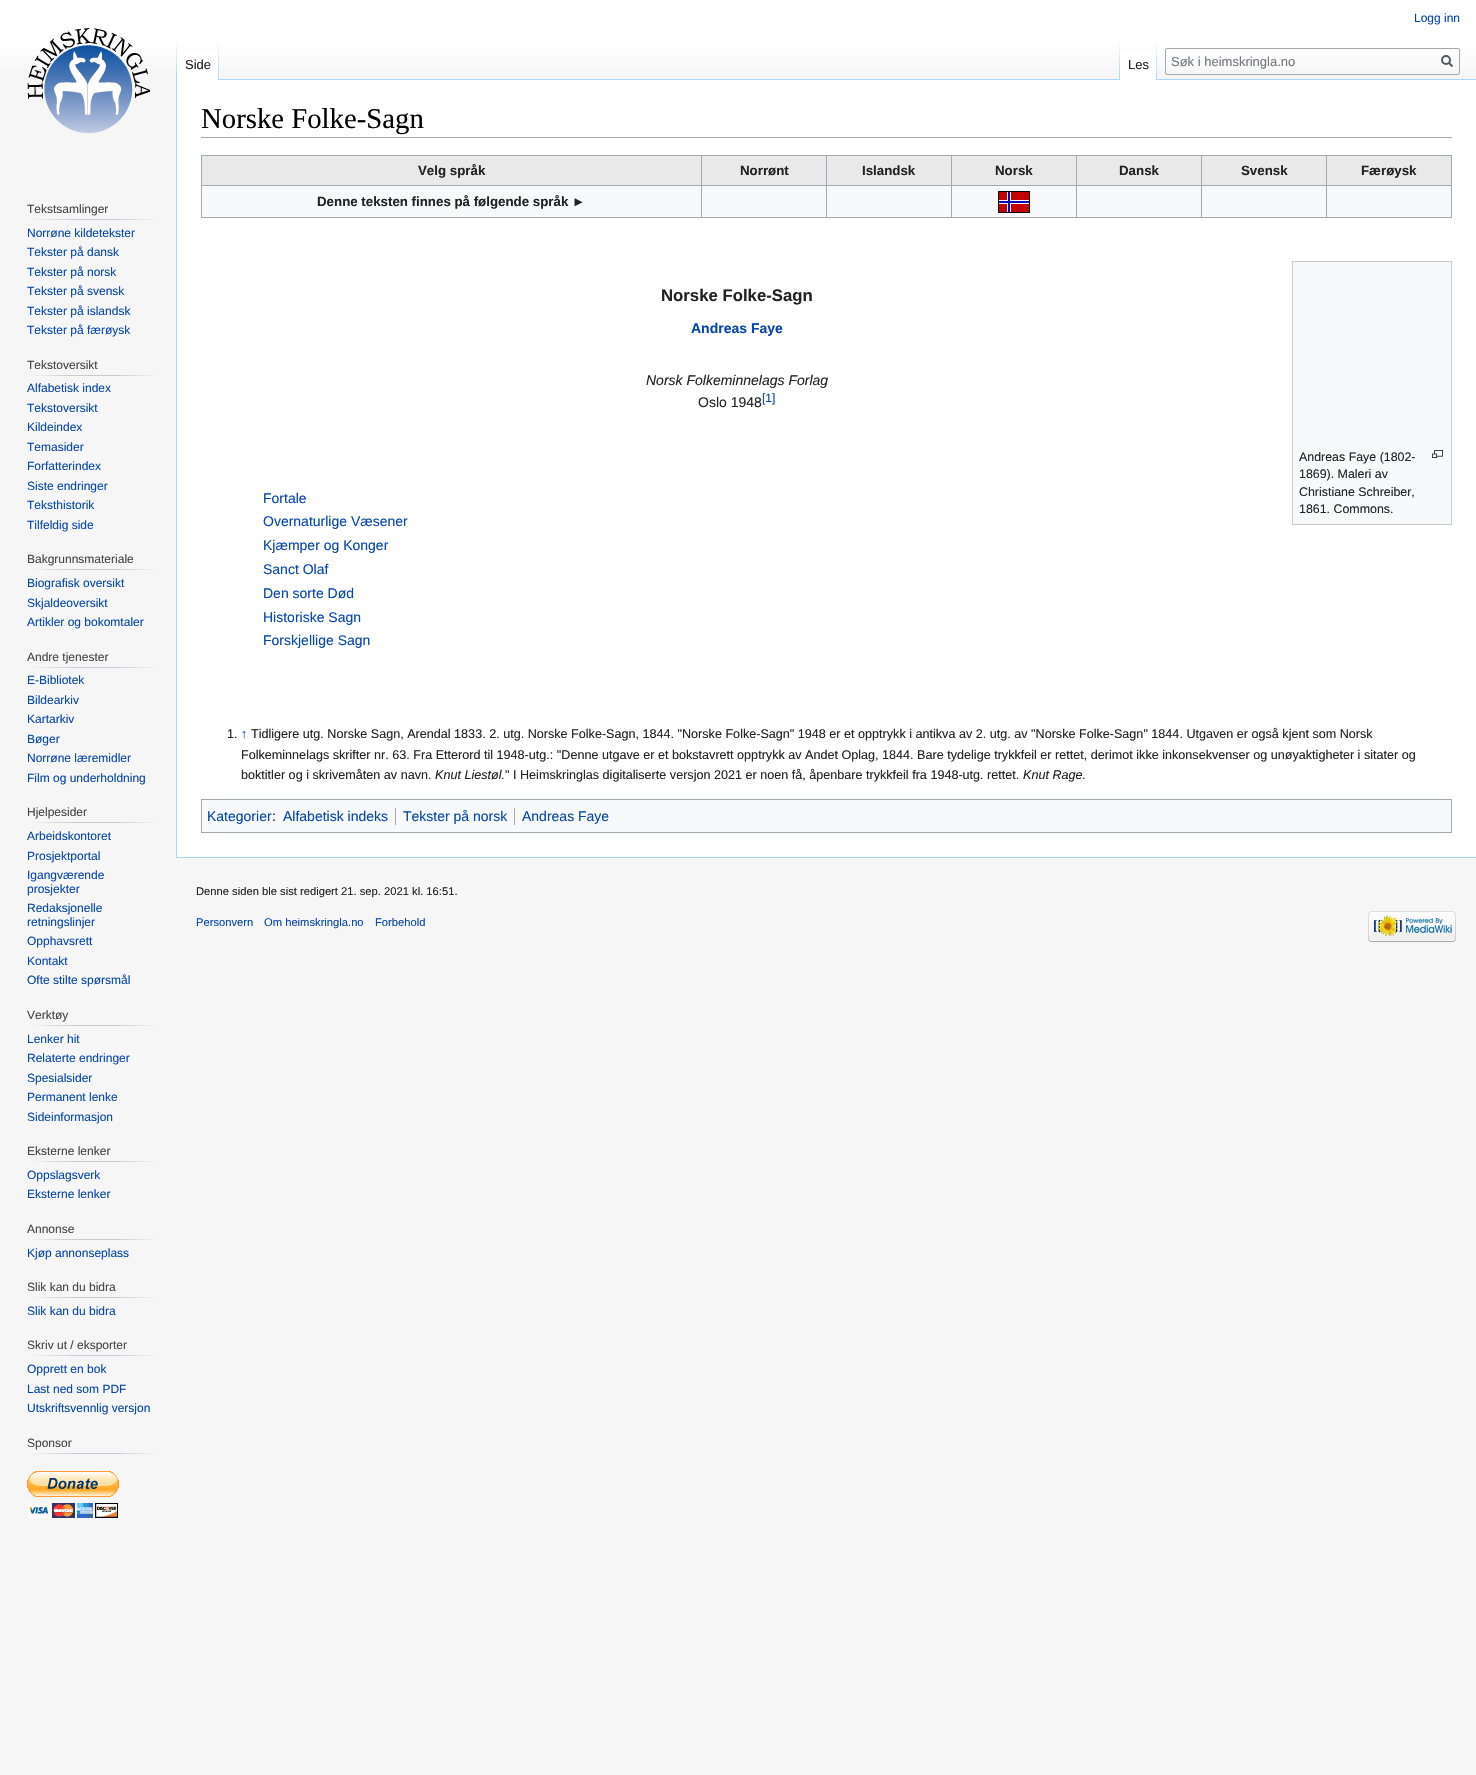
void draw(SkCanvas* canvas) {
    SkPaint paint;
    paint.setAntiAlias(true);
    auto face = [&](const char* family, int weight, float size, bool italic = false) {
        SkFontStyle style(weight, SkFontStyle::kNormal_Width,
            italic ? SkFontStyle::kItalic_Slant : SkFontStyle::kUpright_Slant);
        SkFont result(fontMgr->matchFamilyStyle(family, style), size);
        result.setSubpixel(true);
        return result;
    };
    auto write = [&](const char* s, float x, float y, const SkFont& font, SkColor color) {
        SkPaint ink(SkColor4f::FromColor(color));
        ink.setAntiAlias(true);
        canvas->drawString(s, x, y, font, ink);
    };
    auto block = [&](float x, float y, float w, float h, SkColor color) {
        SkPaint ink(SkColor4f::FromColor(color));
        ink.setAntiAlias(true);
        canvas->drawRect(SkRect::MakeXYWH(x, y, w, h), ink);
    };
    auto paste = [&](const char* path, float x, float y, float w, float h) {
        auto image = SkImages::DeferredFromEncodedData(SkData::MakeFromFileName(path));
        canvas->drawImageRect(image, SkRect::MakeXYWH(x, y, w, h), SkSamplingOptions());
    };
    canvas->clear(SkColorSetRGB(246, 246, 246));
    {
        const SkColor colors[] = {SK_ColorWHITE, SkColorSetRGB(246, 246, 246)};
        const float stops[] = {0.5f, 1};
        const SkPoint ends[] = {{738, 0}, {738, 80}};
        paint.setShader(SkGradientShader::MakeLinear(ends, colors, stops, 2, SkTileMode::kClamp));
        paint.setAlpha(255);
    }
    canvas->drawRect(SkRect::MakeXYWH(0, 0, 1476, 69), paint);
    auto kFont1 = face("Liberation Sans", 400, 12);
    write("Logg inn", 1414, 22, kFont1, SkColorSetRGB(6, 69, 173));
    block(176, 857, 1300, 1, SkColorSetRGB(167, 215, 249));
    block(176, 79, 1, 779, SkColorSetRGB(167, 215, 249));
    {
        const SkColor colors[] = {SkColorSetARGB(0, 167, 215, 249), SkColorSetRGB(167, 215, 249)};
        const float stops[] = {0, 1};
        const SkPoint ends[] = {{177, 40}, {177, 80}};
        paint.setShader(SkGradientShader::MakeLinear(ends, colors, stops, 2, SkTileMode::kClamp));
        paint.setAlpha(255);
    }
    canvas->drawRect(SkRect::MakeXYWH(176, 40, 1, 40), paint);
    block(177, 51, 41, 29, SK_ColorWHITE);
    {
        const SkColor colors[] = {SK_ColorWHITE, SkColorSetRGB(167, 215, 249)};
        const float stops[] = {0, 1};
        const SkPoint ends[] = {{219, 40}, {219, 80}};
        paint.setShader(SkGradientShader::MakeLinear(ends, colors, stops, 2, SkTileMode::kClamp));
        paint.setAlpha(255);
    }
    canvas->drawRect(SkRect::MakeXYWH(218, 40, 1, 40), paint);
    auto kFont2 = face("Liberation Sans", 400, 13);
    write("Side", 185, 69, kFont2, SkColorSetRGB(34, 34, 34));
    block(219, 79, 1257, 1, SkColorSetRGB(167, 215, 249));
    {
        const SkColor colors[] = {SkColorSetARGB(0, 167, 215, 249), SkColorSetRGB(167, 215, 249)};
        const float stops[] = {0, 1};
        const SkPoint ends[] = {{1120, 40}, {1120, 80}};
        paint.setShader(SkGradientShader::MakeLinear(ends, colors, stops, 2, SkTileMode::kClamp));
        paint.setAlpha(255);
    }
    canvas->drawRect(SkRect::MakeXYWH(1119, 40, 1, 40), paint);
    block(1120, 51, 36, 29, SK_ColorWHITE);
    {
        const SkColor colors[] = {SK_ColorWHITE, SkColorSetRGB(167, 215, 249)};
        const float stops[] = {0, 1};
        const SkPoint ends[] = {{1157, 40}, {1157, 80}};
        paint.setShader(SkGradientShader::MakeLinear(ends, colors, stops, 2, SkTileMode::kClamp));
        paint.setAlpha(255);
    }
    canvas->drawRect(SkRect::MakeXYWH(1156, 40, 1, 40), paint);
    write("Les", 1128, 69, kFont2, SkColorSetRGB(34, 34, 34));
    paint.setStyle(SkPaint::kStroke_Style);
    paint.setStrokeWidth(1);
    paint.setShader(nullptr);
    paint.setColor(SkColorSetRGB(162, 169, 177));
    canvas->drawRoundRect(SkRect::MakeXYWH(1165.5f, 48.5f, 294, 26), 1.5f, 1.5f, paint);
    write("Søk i heimskringla.no", 1171, 66, kFont2, SkColorSetRGB(114, 119, 125));
    paint.setStrokeWidth(2);
    paint.setColor(SkColorSetRGB(84, 89, 93));
    canvas->drawPath(SkPathBuilder().moveTo(1452.5f, 66.5f).lineTo(1448.5f, 62.5f).detach(), paint);
    canvas->drawCircle(1446, 60, 4, paint);
    paste("pic1.png", 27, 28, 123, 105);
    write("Tekstsamlinger", 27, 213, kFont1, SkColorSetRGB(68, 68, 68));
    paint.setStyle(SkPaint::kFill_Style);
    {
        const SkColor colors[] = {SkColorSetRGB(246, 246, 246), SkColorSetRGB(200, 204, 209), SkColorSetRGB(200, 204, 209), SkColorSetRGB(246, 246, 246)};
        const float stops[] = {0, 0.35f, 0.7f, 1};
        const SkPoint ends[] = {{27, 220}, {158, 220}};
        paint.setShader(SkGradientShader::MakeLinear(ends, colors, stops, 4, SkTileMode::kClamp));
        paint.setAlpha(255);
    }
    canvas->drawRect(SkRect::MakeXYWH(27, 219, 131, 1), paint);
    write("Norrøne kildetekster", 27, 237, kFont1, SkColorSetRGB(6, 69, 173));
    write("Tekster på dansk", 27, 256, kFont1, SkColorSetRGB(6, 69, 173));
    write("Tekster på norsk", 27, 276, kFont1, SkColorSetRGB(6, 69, 173));
    write("Tekster på svensk", 27, 295, kFont1, SkColorSetRGB(6, 69, 173));
    write("Tekster på islandsk", 27, 315, kFont1, SkColorSetRGB(6, 69, 173));
    write("Tekster på færøysk", 27, 334, kFont1, SkColorSetRGB(6, 69, 173));
    write("Tekstoversikt", 27, 369, kFont1, SkColorSetRGB(68, 68, 68));
    {
        const SkColor colors[] = {SkColorSetRGB(246, 246, 246), SkColorSetRGB(200, 204, 209), SkColorSetRGB(200, 204, 209), SkColorSetRGB(246, 246, 246)};
        const float stops[] = {0, 0.35f, 0.7f, 1};
        const SkPoint ends[] = {{27, 376}, {158, 376}};
        paint.setShader(SkGradientShader::MakeLinear(ends, colors, stops, 4, SkTileMode::kClamp));
        paint.setAlpha(255);
    }
    canvas->drawRect(SkRect::MakeXYWH(27, 375, 131, 1), paint);
    write("Alfabetisk index", 27, 392, kFont1, SkColorSetRGB(6, 69, 173));
    write("Tekstoversikt", 27, 412, kFont1, SkColorSetRGB(6, 69, 173));
    write("Kildeindex", 27, 431, kFont1, SkColorSetRGB(6, 69, 173));
    write("Temasider", 27, 451, kFont1, SkColorSetRGB(6, 69, 173));
    write("Forfatterindex", 27, 470, kFont1, SkColorSetRGB(6, 69, 173));
    write("Siste endringer", 27, 490, kFont1, SkColorSetRGB(6, 69, 173));
    write("Teksthistorik", 27, 509, kFont1, SkColorSetRGB(6, 69, 173));
    write("Tilfeldig side", 27, 529, kFont1, SkColorSetRGB(6, 69, 173));
    write("Bakgrunnsmateriale", 27, 563, kFont1, SkColorSetRGB(68, 68, 68));
    {
        const SkColor colors[] = {SkColorSetRGB(246, 246, 246), SkColorSetRGB(200, 204, 209), SkColorSetRGB(200, 204, 209), SkColorSetRGB(246, 246, 246)};
        const float stops[] = {0, 0.35f, 0.7f, 1};
        const SkPoint ends[] = {{27, 570}, {158, 570}};
        paint.setShader(SkGradientShader::MakeLinear(ends, colors, stops, 4, SkTileMode::kClamp));
        paint.setAlpha(255);
    }
    canvas->drawRect(SkRect::MakeXYWH(27, 569, 131, 1), paint);
    write("Biografisk oversikt", 27, 587, kFont1, SkColorSetRGB(6, 69, 173));
    write("Skjaldeoversikt", 27, 607, kFont1, SkColorSetRGB(6, 69, 173));
    write("Artikler og bokomtaler", 27, 626, kFont1, SkColorSetRGB(6, 69, 173));
    write("Andre tjenester", 27, 661, kFont1, SkColorSetRGB(68, 68, 68));
    {
        const SkColor colors[] = {SkColorSetRGB(246, 246, 246), SkColorSetRGB(200, 204, 209), SkColorSetRGB(200, 204, 209), SkColorSetRGB(246, 246, 246)};
        const float stops[] = {0, 0.35f, 0.7f, 1};
        const SkPoint ends[] = {{27, 668}, {158, 668}};
        paint.setShader(SkGradientShader::MakeLinear(ends, colors, stops, 4, SkTileMode::kClamp));
        paint.setAlpha(255);
    }
    canvas->drawRect(SkRect::MakeXYWH(27, 667, 131, 1), paint);
    write("E-Bibliotek", 27, 684, kFont1, SkColorSetRGB(6, 69, 173));
    write("Bildearkiv", 27, 704, kFont1, SkColorSetRGB(6, 69, 173));
    write("Kartarkiv", 27, 723, kFont1, SkColorSetRGB(6, 69, 173));
    write("Bøger", 27, 743, kFont1, SkColorSetRGB(6, 69, 173));
    write("Norrøne læremidler", 27, 762, kFont1, SkColorSetRGB(6, 69, 173));
    write("Film og underholdning", 27, 782, kFont1, SkColorSetRGB(6, 69, 173));
    write("Hjelpesider", 27, 816, kFont1, SkColorSetRGB(68, 68, 68));
    {
        const SkColor colors[] = {SkColorSetRGB(246, 246, 246), SkColorSetRGB(200, 204, 209), SkColorSetRGB(200, 204, 209), SkColorSetRGB(246, 246, 246)};
        const float stops[] = {0, 0.35f, 0.7f, 1};
        const SkPoint ends[] = {{27, 823}, {158, 823}};
        paint.setShader(SkGradientShader::MakeLinear(ends, colors, stops, 4, SkTileMode::kClamp));
        paint.setAlpha(255);
    }
    canvas->drawRect(SkRect::MakeXYWH(27, 822, 131, 1), paint);
    write("Arbeidskontoret", 27, 840, kFont1, SkColorSetRGB(6, 69, 173));
    write("Prosjektportal", 27, 860, kFont1, SkColorSetRGB(6, 69, 173));
    write("Igangværende", 27, 879, kFont1, SkColorSetRGB(6, 69, 173));
    write("prosjekter", 27, 893, kFont1, SkColorSetRGB(6, 69, 173));
    write("Redaksjonelle", 27, 912, kFont1, SkColorSetRGB(6, 69, 173));
    write("retningslinjer", 27, 926, kFont1, SkColorSetRGB(6, 69, 173));
    write("Opphavsrett", 27, 945, kFont1, SkColorSetRGB(6, 69, 173));
    write("Kontakt", 27, 965, kFont1, SkColorSetRGB(6, 69, 173));
    write("Ofte stilte spørsmål", 27, 984, kFont1, SkColorSetRGB(6, 69, 173));
    write("Verktøy", 27, 1019, kFont1, SkColorSetRGB(68, 68, 68));
    {
        const SkColor colors[] = {SkColorSetRGB(246, 246, 246), SkColorSetRGB(200, 204, 209), SkColorSetRGB(200, 204, 209), SkColorSetRGB(246, 246, 246)};
        const float stops[] = {0, 0.35f, 0.7f, 1};
        const SkPoint ends[] = {{27, 1026}, {158, 1026}};
        paint.setShader(SkGradientShader::MakeLinear(ends, colors, stops, 4, SkTileMode::kClamp));
        paint.setAlpha(255);
    }
    canvas->drawRect(SkRect::MakeXYWH(27, 1025, 131, 1), paint);
    write("Lenker hit", 27, 1043, kFont1, SkColorSetRGB(6, 69, 173));
    write("Relaterte endringer", 27, 1062, kFont1, SkColorSetRGB(6, 69, 173));
    write("Spesialsider", 27, 1082, kFont1, SkColorSetRGB(6, 69, 173));
    write("Permanent lenke", 27, 1101, kFont1, SkColorSetRGB(6, 69, 173));
    write("Sideinformasjon", 27, 1121, kFont1, SkColorSetRGB(6, 69, 173));
    write("Eksterne lenker", 27, 1155, kFont1, SkColorSetRGB(68, 68, 68));
    {
        const SkColor colors[] = {SkColorSetRGB(246, 246, 246), SkColorSetRGB(200, 204, 209), SkColorSetRGB(200, 204, 209), SkColorSetRGB(246, 246, 246)};
        const float stops[] = {0, 0.35f, 0.7f, 1};
        const SkPoint ends[] = {{27, 1162}, {158, 1162}};
        paint.setShader(SkGradientShader::MakeLinear(ends, colors, stops, 4, SkTileMode::kClamp));
        paint.setAlpha(255);
    }
    canvas->drawRect(SkRect::MakeXYWH(27, 1161, 131, 1), paint);
    write("Oppslagsverk", 27, 1179, kFont1, SkColorSetRGB(6, 69, 173));
    write("Eksterne lenker", 27, 1198, kFont1, SkColorSetRGB(6, 69, 173));
    write("Annonse", 27, 1233, kFont1, SkColorSetRGB(68, 68, 68));
    {
        const SkColor colors[] = {SkColorSetRGB(246, 246, 246), SkColorSetRGB(200, 204, 209), SkColorSetRGB(200, 204, 209), SkColorSetRGB(246, 246, 246)};
        const float stops[] = {0, 0.35f, 0.7f, 1};
        const SkPoint ends[] = {{27, 1240}, {158, 1240}};
        paint.setShader(SkGradientShader::MakeLinear(ends, colors, stops, 4, SkTileMode::kClamp));
        paint.setAlpha(255);
    }
    canvas->drawRect(SkRect::MakeXYWH(27, 1239, 131, 1), paint);
    write("Kjøp annonseplass", 27, 1257, kFont1, SkColorSetRGB(6, 69, 173));
    write("Slik kan du bidra", 27, 1291, kFont1, SkColorSetRGB(68, 68, 68));
    {
        const SkColor colors[] = {SkColorSetRGB(246, 246, 246), SkColorSetRGB(200, 204, 209), SkColorSetRGB(200, 204, 209), SkColorSetRGB(246, 246, 246)};
        const float stops[] = {0, 0.35f, 0.7f, 1};
        const SkPoint ends[] = {{27, 1298}, {158, 1298}};
        paint.setShader(SkGradientShader::MakeLinear(ends, colors, stops, 4, SkTileMode::kClamp));
        paint.setAlpha(255);
    }
    canvas->drawRect(SkRect::MakeXYWH(27, 1297, 131, 1), paint);
    write("Slik kan du bidra", 27, 1315, kFont1, SkColorSetRGB(6, 69, 173));
    write("Skriv ut / eksporter", 27, 1349, kFont1, SkColorSetRGB(68, 68, 68));
    {
        const SkColor colors[] = {SkColorSetRGB(246, 246, 246), SkColorSetRGB(200, 204, 209), SkColorSetRGB(200, 204, 209), SkColorSetRGB(246, 246, 246)};
        const float stops[] = {0, 0.35f, 0.7f, 1};
        const SkPoint ends[] = {{27, 1356}, {158, 1356}};
        paint.setShader(SkGradientShader::MakeLinear(ends, colors, stops, 4, SkTileMode::kClamp));
        paint.setAlpha(255);
    }
    canvas->drawRect(SkRect::MakeXYWH(27, 1355, 131, 1), paint);
    write("Opprett en bok", 27, 1373, kFont1, SkColorSetRGB(6, 69, 173));
    write("Last ned som PDF", 27, 1393, kFont1, SkColorSetRGB(6, 69, 173));
    write("Utskriftsvennlig versjon", 27, 1412, kFont1, SkColorSetRGB(6, 69, 173));
    write("Sponsor", 27, 1447, kFont1, SkColorSetRGB(68, 68, 68));
    {
        const SkColor colors[] = {SkColorSetRGB(246, 246, 246), SkColorSetRGB(200, 204, 209), SkColorSetRGB(200, 204, 209), SkColorSetRGB(246, 246, 246)};
        const float stops[] = {0, 0.35f, 0.7f, 1};
        const SkPoint ends[] = {{27, 1454}, {158, 1454}};
        paint.setShader(SkGradientShader::MakeLinear(ends, colors, stops, 4, SkTileMode::kClamp));
        paint.setAlpha(255);
    }
    canvas->drawRect(SkRect::MakeXYWH(27, 1453, 131, 1), paint);
    paste("pic2.png", 27, 1471, 92, 47);
    block(177, 80, 1299, 777, SK_ColorWHITE);
    block(201, 137, 1251, 1, SkColorSetRGB(162, 169, 177));
    auto kFont3 = face("Liberation Serif", 400, 28.75f);
    write("Norske Folke-Sagn", 201, 128, kFont3, SK_ColorBLACK);
    block(202, 186, 1249, 31, SkColorSetRGB(248, 249, 250));
    block(201, 155, 1251, 1, SkColorSetRGB(162, 169, 177));
    block(1451, 155, 1, 63, SkColorSetRGB(162, 169, 177));
    block(201, 217, 1251, 1, SkColorSetRGB(162, 169, 177));
    block(201, 155, 1, 63, SkColorSetRGB(162, 169, 177));
    block(202, 156, 1249, 29, SkColorSetRGB(233, 233, 233));
    auto kFont4 = face("Liberation Sans", 700, 13.3f);
    write("Velg språk", 418, 175, kFont4, SkColorSetRGB(34, 34, 34));
    block(1201, 185, 126, 1, SkColorSetRGB(162, 169, 177));
    block(1201, 185, 1, 33, SkColorSetRGB(162, 169, 177));
    block(1076, 185, 126, 1, SkColorSetRGB(162, 169, 177));
    block(1076, 185, 1, 33, SkColorSetRGB(162, 169, 177));
    block(951, 185, 126, 1, SkColorSetRGB(162, 169, 177));
    block(951, 185, 1, 33, SkColorSetRGB(162, 169, 177));
    block(826, 185, 126, 1, SkColorSetRGB(162, 169, 177));
    block(826, 185, 1, 33, SkColorSetRGB(162, 169, 177));
    block(701, 185, 126, 1, SkColorSetRGB(162, 169, 177));
    block(701, 185, 1, 33, SkColorSetRGB(162, 169, 177));
    block(201, 185, 501, 1, SkColorSetRGB(162, 169, 177));
    block(701, 155, 1, 31, SkColorSetRGB(162, 169, 177));
    write("Norrønt", 740, 175, kFont4, SkColorSetRGB(34, 34, 34));
    block(826, 155, 1, 31, SkColorSetRGB(162, 169, 177));
    write("Islandsk", 862, 175, kFont4, SkColorSetRGB(34, 34, 34));
    block(951, 155, 1, 31, SkColorSetRGB(162, 169, 177));
    write("Norsk", 995, 175, kFont4, SkColorSetRGB(34, 34, 34));
    block(1076, 155, 1, 31, SkColorSetRGB(162, 169, 177));
    write("Dansk", 1119, 175, kFont4, SkColorSetRGB(34, 34, 34));
    block(1201, 155, 1, 31, SkColorSetRGB(162, 169, 177));
    write("Svensk", 1241, 175, kFont4, SkColorSetRGB(34, 34, 34));
    block(1326, 185, 1, 33, SkColorSetRGB(162, 169, 177));
    block(1326, 185, 126, 1, SkColorSetRGB(162, 169, 177));
    block(1326, 155, 1, 31, SkColorSetRGB(162, 169, 177));
    write("Færøysk", 1361, 175, kFont4, SkColorSetRGB(34, 34, 34));
    write("Denne teksten finnes på følgende språk ►", 317, 206, kFont4, SkColorSetRGB(34, 34, 34));
    paste("pic3.png", 998, 191, 32, 22);
    auto kFont5 = face("Liberation Sans", 700, 16.75f);
    write("Norske Folke-Sagn", 661, 301, kFont5, SkColorSetRGB(34, 34, 34));
    auto kFont6 = face("Liberation Sans", 700, 14);
    write("Andreas Faye", 691, 333, kFont6, SkColorSetRGB(6, 69, 173));
    auto kFont7 = face("Liberation Sans", 400, 14, true);
    write("Norsk Folkeminnelags Forlag", 646, 385, kFont7, SkColorSetRGB(34, 34, 34));
    auto kFont8 = face("Liberation Sans", 400, 14);
    write("Oslo 1948", 698, 407, kFont8, SkColorSetRGB(34, 34, 34));
    write("[1]", 762, 402, kFont1, SkColorSetRGB(6, 69, 173));
    paint.setShader(nullptr);
    paint.setColor(SkColorSetRGB(248, 249, 250));
    canvas->drawRect(SkRect::MakeXYWH(1292.5f, 261.5f, 159, 263), paint);
    paint.setStyle(SkPaint::kStroke_Style);
    paint.setStrokeWidth(1);
    paint.setColor(SkColorSetRGB(200, 204, 209));
    canvas->drawRect(SkRect::MakeXYWH(1292.5f, 261.5f, 159, 263), paint);
    auto kFont9 = face("Liberation Sans", 400, 12.4f);
    write("Andreas Faye (1802-", 1299, 461, kFont9, SkColorSetRGB(34, 34, 34));
    paste("pic4.png", 1432, 450, 11, 8);
    write("1869). Maleri av", 1299, 478, kFont9, SkColorSetRGB(34, 34, 34));
    write("Christiane Schreiber,", 1299, 496, kFont9, SkColorSetRGB(34, 34, 34));
    write("1861. Commons.", 1299, 513, kFont9, SkColorSetRGB(34, 34, 34));
    write("Fortale", 263, 503, kFont8, SkColorSetRGB(6, 69, 173));
    write("Overnaturlige Væsener", 263, 526, kFont8, SkColorSetRGB(6, 69, 173));
    write("Kjæmper og Konger", 263, 550, kFont8, SkColorSetRGB(6, 69, 173));
    write("Sanct Olaf", 263, 574, kFont8, SkColorSetRGB(6, 69, 173));
    write("Den sorte Død", 263, 598, kFont8, SkColorSetRGB(6, 69, 173));
    write("Historiske Sagn", 263, 622, kFont8, SkColorSetRGB(6, 69, 173));
    write("Forskjellige Sagn", 263, 645, kFont8, SkColorSetRGB(6, 69, 173));
    auto kFont10 = face("Liberation Sans", 400, 12.6f);
    write("1.", 227, 738, kFont10, SkColorSetRGB(34, 34, 34));
    write("↑", 241, 738, kFont10, SkColorSetRGB(6, 69, 173));
    write("Tidligere utg. Norske Sagn, Arendal 1833. 2. utg. Norske Folke-Sagn, 1844. \"Norske Folke-Sagn\" 1948 er et opptrykk i antikva av 2. utg. av \"Norske Folke-Sagn\" 1844. Utgaven er også kjent som Norsk", 251, 738, kFont10, SkColorSetRGB(34, 34, 34));
    write("Folkeminnelags skrifter nr. 63. Fra Etterord til 1948-utg.: \"Denne utgave er et bokstavrett opptrykk av Andet Oplag, 1844. Bare tydelige trykkfeil er rettet, derimot ikke inkonsekvenser og unøyaktigheter i sitater og", 241, 759, kFont10, SkColorSetRGB(34, 34, 34));
    write("boktitler og i skrivemåten av navn.", 241, 779, kFont10, SkColorSetRGB(34, 34, 34));
    auto kFont11 = face("Liberation Sans", 400, 12.6f, true);
    write("Knut Liestøl.", 435, 779, kFont11, SkColorSetRGB(34, 34, 34));
    write("\" I Heimskringlas digitaliserte versjon 2021 er noen få, åpenbare trykkfeil fra 1948-utg. rettet.", 505, 779, kFont10, SkColorSetRGB(34, 34, 34));
    write("Knut Rage", 1023, 779, kFont11, SkColorSetRGB(34, 34, 34));
    write(".", 1082, 779, kFont10, SkColorSetRGB(34, 34, 34));
    paint.setStyle(SkPaint::kFill_Style);
    paint.setColor(SkColorSetRGB(248, 249, 250));
    canvas->drawRect(SkRect::MakeXYWH(201.5f, 799.5f, 1250, 33), paint);
    paint.setStyle(SkPaint::kStroke_Style);
    paint.setColor(SkColorSetRGB(162, 169, 177));
    canvas->drawRect(SkRect::MakeXYWH(201.5f, 799.5f, 1250, 33), paint);
    write("Kategorier", 207, 821, kFont8, SkColorSetRGB(6, 69, 173));
    write(":", 272, 821, kFont8, SkColorSetRGB(34, 34, 34));
    write("Alfabetisk indeks", 283, 821, kFont8, SkColorSetRGB(6, 69, 173));
    block(395, 808, 1, 17, SkColorSetRGB(162, 169, 177));
    write("Tekster på norsk", 403, 821, kFont8, SkColorSetRGB(6, 69, 173));
    block(514, 808, 1, 17, SkColorSetRGB(162, 169, 177));
    write("Andreas Faye", 522, 821, kFont8, SkColorSetRGB(6, 69, 173));
    auto kFont12 = face("Liberation Sans", 400, 11.2f);
    write("Denne siden ble sist redigert 21. sep. 2021 kl. 16:51.", 196, 895, kFont12, SkColorSetRGB(34, 34, 34));
    write("Personvern", 196, 926, kFont12, SkColorSetRGB(6, 69, 173));
    write("Om heimskringla.no", 264, 926, kFont12, SkColorSetRGB(6, 69, 173));
    write("Forbehold", 375, 926, kFont12, SkColorSetRGB(6, 69, 173));
    paste("pic5.png", 1368, 911, 88, 31);
}
